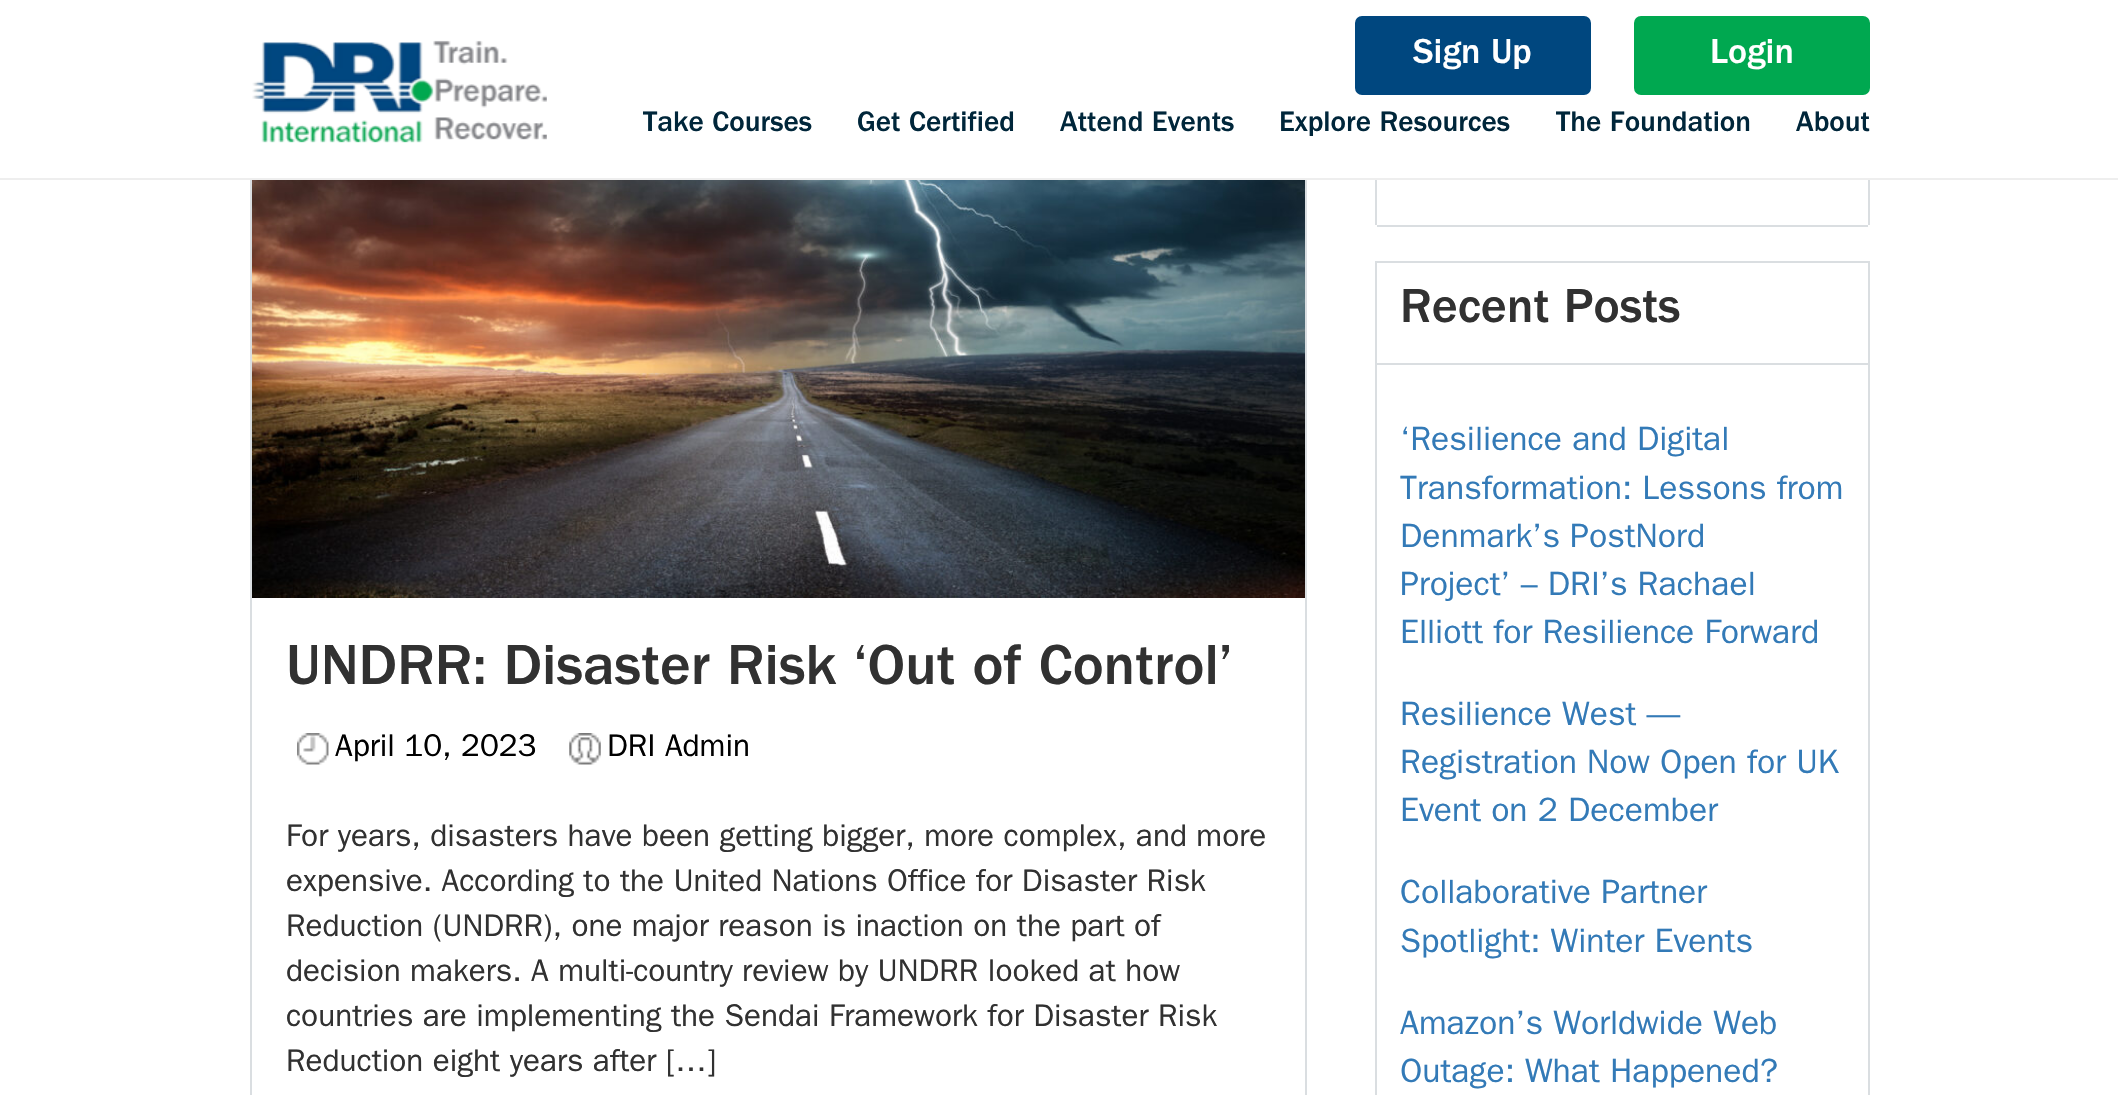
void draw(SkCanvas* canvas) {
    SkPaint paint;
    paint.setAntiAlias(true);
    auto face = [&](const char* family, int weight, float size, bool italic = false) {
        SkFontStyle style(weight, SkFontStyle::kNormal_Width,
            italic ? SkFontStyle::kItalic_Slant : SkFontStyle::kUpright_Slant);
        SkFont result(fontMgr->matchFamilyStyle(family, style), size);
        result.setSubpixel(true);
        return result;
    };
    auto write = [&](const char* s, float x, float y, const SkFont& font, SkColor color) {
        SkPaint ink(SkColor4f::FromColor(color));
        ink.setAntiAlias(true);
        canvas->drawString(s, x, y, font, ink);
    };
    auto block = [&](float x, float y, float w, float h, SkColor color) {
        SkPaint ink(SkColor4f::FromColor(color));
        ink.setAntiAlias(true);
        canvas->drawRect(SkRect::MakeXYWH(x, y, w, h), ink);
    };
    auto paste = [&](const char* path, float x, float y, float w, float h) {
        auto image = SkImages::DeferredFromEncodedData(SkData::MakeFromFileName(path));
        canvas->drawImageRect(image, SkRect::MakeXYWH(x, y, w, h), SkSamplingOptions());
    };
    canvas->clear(SK_ColorWHITE);
    paint.setStyle(SkPaint::kStroke_Style);
    paint.setStrokeWidth(2);
    paint.setColor(SkColorSetRGB(218, 222, 225));
    canvas->drawRect(SkRect::MakeXYWH(251, -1, 1055, 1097), paint);
    block(250, 0, 1057, 178, SK_ColorWHITE);
    block(0, 178, 2118, 2, SkColorSetRGB(238, 238, 238));
    paste("pic1.png", 252, 42, 182, 101);
    paste("pic2.png", 433, 40, 114, 100);
    paint.setStyle(SkPaint::kFill_Style);
    paint.setColor(SkColorSetRGB(0, 71, 127));
    canvas->drawRoundRect(SkRect::MakeXYWH(1356, 17, 234, 77), 6, 6, paint);
    paint.setStyle(SkPaint::kStroke_Style);
    canvas->drawRoundRect(SkRect::MakeXYWH(1356, 17, 234, 77), 6, 6, paint);
    auto kFont1 = face("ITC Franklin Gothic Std", 500, 36);
    write("Sign Up", 1413, 63, kFont1, SK_ColorWHITE);
    paint.setStyle(SkPaint::kFill_Style);
    paint.setColor(SkColorSetRGB(0, 168, 80));
    canvas->drawRoundRect(SkRect::MakeXYWH(1635, 17, 234, 77), 6, 6, paint);
    paint.setStyle(SkPaint::kStroke_Style);
    canvas->drawRoundRect(SkRect::MakeXYWH(1635, 17, 234, 77), 6, 6, paint);
    write("Login", 1710, 63, kFont1, SK_ColorWHITE);
    auto kFont2 = face("ITC Franklin Gothic Std", 500, 29.25f);
    write("Take Courses", 643, 131, kFont2, SkColorSetRGB(0, 38, 58));
    write("Get Certified", 857, 131, kFont2, SkColorSetRGB(0, 38, 58));
    write("Attend Events", 1060, 131, kFont2, SkColorSetRGB(0, 38, 58));
    write("Explore Resources", 1279, 131, kFont2, SkColorSetRGB(0, 38, 58));
    write("The Foundation", 1556, 131, kFont2, SkColorSetRGB(0, 38, 58));
    write("About", 1796, 131, kFont2, SkColorSetRGB(0, 38, 58));
    paste("pic3.png", 252, 180, 1053, 418);
    auto kFont3 = face("ITC Franklin Gothic Std", 500, 58.5f);
    write("UNDRR: Disaster Risk ‘Out of Control’", 286, 684, kFont3, SkColorSetRGB(49, 49, 49));
    paste("pic4.png", 297, 733, 32, 32);
    auto kFont4 = face("ITC Franklin Gothic Std", 400, 31.5f);
    write("April 10, 2023", 335, 756, kFont4, SK_ColorBLACK);
    paste("pic5.png", 569, 733, 32, 32);
    write("DRI Admin", 607, 756, kFont4, SK_ColorBLACK);
    write("For years, disasters have been getting bigger, more complex, and more", 286, 846, kFont4, SkColorSetRGB(49, 49, 49));
    write("expensive. According to the United Nations Office for Disaster Risk", 286, 891, kFont4, SkColorSetRGB(49, 49, 49));
    write("Reduction (UNDRR), one major reason is inaction on the part of", 286, 936, kFont4, SkColorSetRGB(49, 49, 49));
    write("decision makers. A multi-country review by UNDRR looked at how", 286, 981, kFont4, SkColorSetRGB(49, 49, 49));
    write("countries are implementing the Sendai Framework for Disaster Risk", 286, 1026, kFont4, SkColorSetRGB(49, 49, 49));
    write("Reduction eight years after […]", 286, 1071, kFont4, SkColorSetRGB(49, 49, 49));
    block(1868, 180, 2, 45, SkColorSetRGB(218, 222, 225));
    block(1377, 225, 491, 2, SkColorSetRGB(218, 222, 225));
    block(1375, 180, 2, 45, SkColorSetRGB(218, 222, 225));
    paint.setColor(SkColorSetRGB(218, 222, 225));
    canvas->drawRect(SkRect::MakeXYWH(1376, 262, 493, 102), paint);
    auto kFont5 = face("ITC Franklin Gothic Std", 500, 49.5f);
    write("Recent Posts", 1400, 322, kFont5, SkColorSetRGB(49, 49, 49));
    block(1868, 365, 2, 730, SkColorSetRGB(218, 222, 225));
    block(1375, 365, 2, 730, SkColorSetRGB(218, 222, 225));
    auto kFont6 = face("ITC Franklin Gothic Std", 400, 33.75f);
    write("‘Resilience and Digital", 1400, 450, kFont6, SkColorSetRGB(51, 122, 183));
    write("Transformation: Lessons from", 1400, 499, kFont6, SkColorSetRGB(51, 122, 183));
    write("Denmark’s PostNord", 1400, 547, kFont6, SkColorSetRGB(51, 122, 183));
    write("Project’ – DRI’s Rachael", 1400, 595, kFont6, SkColorSetRGB(51, 122, 183));
    write("Elliott for Resilience Forward", 1400, 643, kFont6, SkColorSetRGB(51, 122, 183));
    write("Resilience West —", 1400, 725, kFont6, SkColorSetRGB(51, 122, 183));
    write("Registration Now Open for UK", 1400, 773, kFont6, SkColorSetRGB(51, 122, 183));
    write("Event on 2 December", 1400, 821, kFont6, SkColorSetRGB(51, 122, 183));
    write("Collaborative Partner", 1400, 903, kFont6, SkColorSetRGB(51, 122, 183));
    write("Spotlight: Winter Events", 1400, 952, kFont6, SkColorSetRGB(51, 122, 183));
    write("Amazon’s Worldwide Web", 1400, 1034, kFont6, SkColorSetRGB(51, 122, 183));
    write("Outage: What Happened?", 1400, 1082, kFont6, SkColorSetRGB(51, 122, 183));
}
